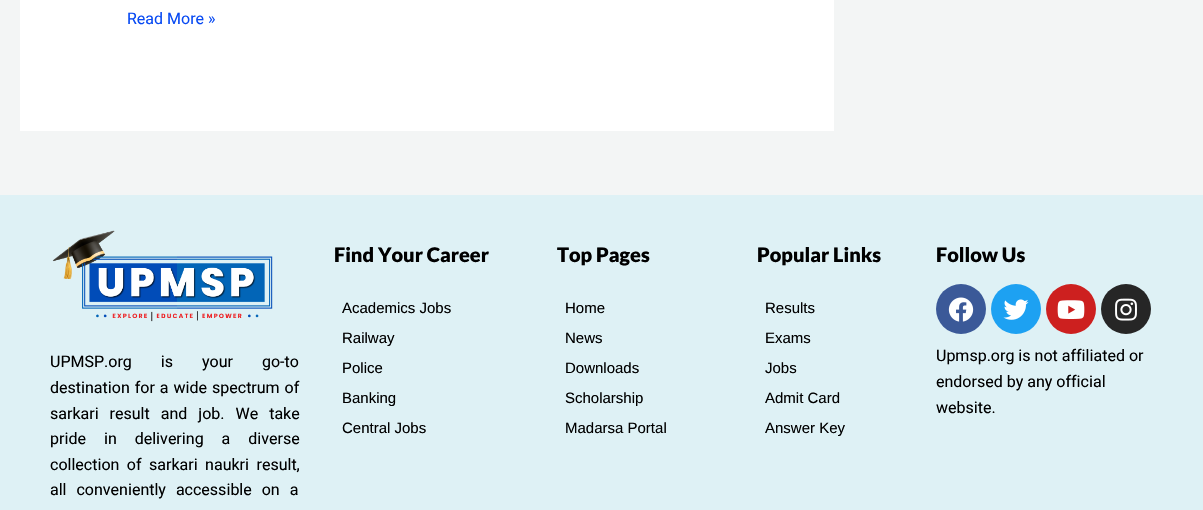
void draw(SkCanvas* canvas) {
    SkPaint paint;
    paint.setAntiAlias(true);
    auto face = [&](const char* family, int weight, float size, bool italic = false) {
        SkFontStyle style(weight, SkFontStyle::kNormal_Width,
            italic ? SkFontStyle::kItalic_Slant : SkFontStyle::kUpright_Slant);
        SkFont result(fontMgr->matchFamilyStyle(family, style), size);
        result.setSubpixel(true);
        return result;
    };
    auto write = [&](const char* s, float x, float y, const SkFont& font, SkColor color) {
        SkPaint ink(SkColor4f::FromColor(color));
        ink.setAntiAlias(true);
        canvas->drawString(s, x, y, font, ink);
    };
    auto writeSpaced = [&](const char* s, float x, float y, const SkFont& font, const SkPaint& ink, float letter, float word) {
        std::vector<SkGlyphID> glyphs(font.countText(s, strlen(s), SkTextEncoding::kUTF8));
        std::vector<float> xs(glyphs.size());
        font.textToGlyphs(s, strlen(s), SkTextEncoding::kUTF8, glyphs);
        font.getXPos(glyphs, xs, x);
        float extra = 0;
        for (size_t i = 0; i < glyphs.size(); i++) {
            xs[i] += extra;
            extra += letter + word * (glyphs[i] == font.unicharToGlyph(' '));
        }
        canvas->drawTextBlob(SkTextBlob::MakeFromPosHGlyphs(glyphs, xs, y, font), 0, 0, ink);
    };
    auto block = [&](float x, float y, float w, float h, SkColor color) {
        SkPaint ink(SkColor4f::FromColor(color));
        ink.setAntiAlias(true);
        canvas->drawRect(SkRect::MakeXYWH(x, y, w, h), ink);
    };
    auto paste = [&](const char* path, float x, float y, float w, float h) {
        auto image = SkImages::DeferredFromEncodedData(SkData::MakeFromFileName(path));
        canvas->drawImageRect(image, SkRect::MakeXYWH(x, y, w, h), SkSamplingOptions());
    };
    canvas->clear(SkColorSetRGB(243, 245, 245));
    block(20, 0, 814, 131, SK_ColorWHITE);
    auto kFont1 = face("Heebo", 400, 16);
    write("Read More »", 127, 24, kFont1, SkColorSetRGB(8, 74, 243));
    block(0, 195, 1203, 315, SkColorSetRGB(222, 241, 245));
    paste("pic1.png", 52, 230, 221, 92);
    paint.setColor(SK_ColorBLACK);
    writeSpaced("UPMSP.org is your go-to", 50, 367, kFont1, paint, 0, 25);
    writeSpaced("destination for a wide spectrum of", 50, 393, kFont1, paint, 0, 1);
    writeSpaced("sarkari result and job. We take", 50, 419, kFont1, paint, 0, 7);
    writeSpaced("pride in delivering a diverse", 50, 444, kFont1, paint, 0, 14);
    writeSpaced("collection of sarkari naukri result,", 50, 470, kFont1, paint, 0, 3.5f);
    writeSpaced("all conveniently accessible on a", 50, 495, kFont1, paint, 0, 6);
    auto kFont2 = face("Lato", 900, 20);
    write("Find Your Career", 334, 262, kFont2, SK_ColorBLACK);
    auto kFont3 = face("Liberation Sans", 400, 15);
    write("Academics Jobs", 342, 313, kFont3, SK_ColorBLACK);
    write("Railway", 342, 343, kFont3, SK_ColorBLACK);
    write("Police", 342, 373, kFont3, SK_ColorBLACK);
    write("Banking", 342, 403, kFont3, SK_ColorBLACK);
    write("Central Jobs", 342, 433, kFont3, SK_ColorBLACK);
    write("Top Pages", 557, 262, kFont2, SK_ColorBLACK);
    write("Home", 565, 313, kFont3, SK_ColorBLACK);
    write("News", 565, 343, kFont3, SK_ColorBLACK);
    write("Downloads", 565, 373, kFont3, SK_ColorBLACK);
    write("Scholarship", 565, 403, kFont3, SK_ColorBLACK);
    write("Madarsa Portal", 565, 433, kFont3, SK_ColorBLACK);
    write("Popular Links", 757, 262, kFont2, SK_ColorBLACK);
    write("Results", 765, 313, kFont3, SK_ColorBLACK);
    write("Exams", 765, 343, kFont3, SK_ColorBLACK);
    write("Jobs", 765, 373, kFont3, SK_ColorBLACK);
    write("Admit Card", 765, 403, kFont3, SK_ColorBLACK);
    write("Answer Key", 765, 433, kFont3, SK_ColorBLACK);
    write("Follow Us", 936, 262, kFont2, SK_ColorBLACK);
    paint.setColor(SkColorSetRGB(59, 89, 152));
    canvas->drawCircle(961, 309, 25, paint);
    paste("pic2.png", 948, 297, 26, 25);
    paint.setColor(SkColorSetRGB(29, 161, 242));
    canvas->drawCircle(1016, 309, 25, paint);
    paste("pic3.png", 1003, 299, 26, 21);
    paint.setColor(SkColorSetRGB(205, 32, 31));
    canvas->drawCircle(1071, 309, 25, paint);
    paste("pic4.png", 1057, 300, 28, 19);
    paint.setColor(SkColorSetRGB(38, 38, 38));
    canvas->drawCircle(1126, 309, 25, paint);
    paste("pic5.png", 1115, 298, 22, 23);
    write("Upmsp.org is not affiliated or", 936, 361, kFont1, SK_ColorBLACK);
    write("endorsed by any official", 936, 387, kFont1, SK_ColorBLACK);
    write("website.", 936, 413, kFont1, SK_ColorBLACK);
}
